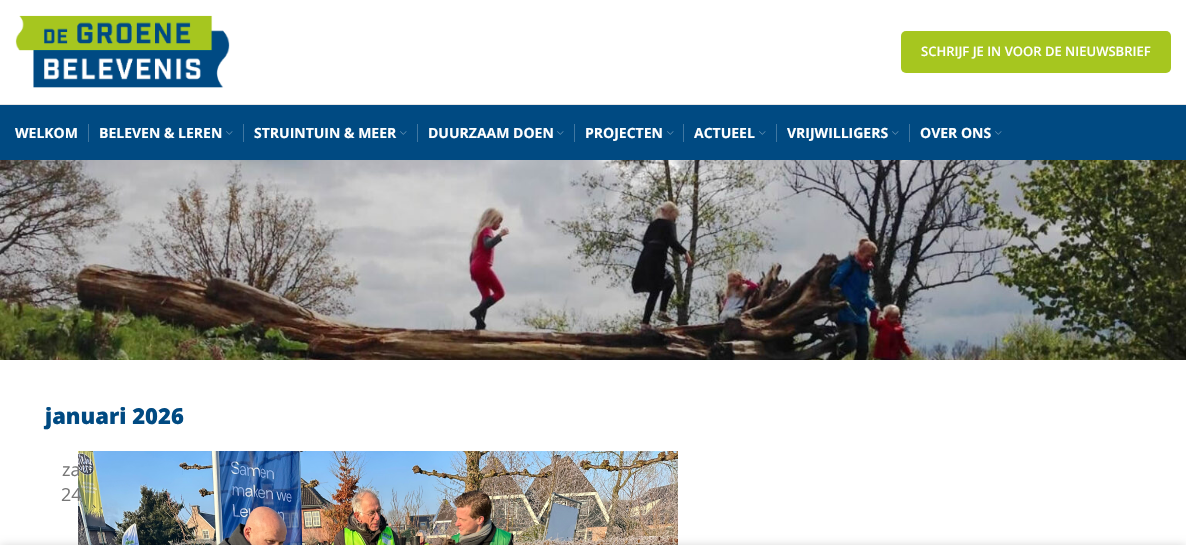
void draw(SkCanvas* canvas) {
    SkPaint paint;
    paint.setAntiAlias(true);
    auto face = [&](const char* family, int weight, float size, bool italic = false) {
        SkFontStyle style(weight, SkFontStyle::kNormal_Width,
            italic ? SkFontStyle::kItalic_Slant : SkFontStyle::kUpright_Slant);
        SkFont result(fontMgr->matchFamilyStyle(family, style), size);
        result.setSubpixel(true);
        return result;
    };
    auto write = [&](const char* s, float x, float y, const SkFont& font, SkColor color) {
        SkPaint ink(SkColor4f::FromColor(color));
        ink.setAntiAlias(true);
        canvas->drawString(s, x, y, font, ink);
    };
    auto block = [&](float x, float y, float w, float h, SkColor color) {
        SkPaint ink(SkColor4f::FromColor(color));
        ink.setAntiAlias(true);
        canvas->drawRect(SkRect::MakeXYWH(x, y, w, h), ink);
    };
    auto card = [&](float x, float y, float w, float h, float radius, SkColor color) {
        SkPaint ink(SkColor4f::FromColor(color));
        ink.setAntiAlias(true);
        canvas->drawRoundRect(SkRect::MakeXYWH(x, y, w, h), radius, radius, ink);
    };
    auto paste = [&](const char* path, float x, float y, float w, float h) {
        auto image = SkImages::DeferredFromEncodedData(SkData::MakeFromFileName(path));
        canvas->drawImageRect(image, SkRect::MakeXYWH(x, y, w, h), SkSamplingOptions());
    };
    canvas->clear(SK_ColorWHITE);
    block(0, 104, 1186, 1, SkColorSetRGB(230, 230, 230));
    paste("pic1.png", 15, 15, 215, 73);
    card(901, 31, 270, 42, 5, SkColorSetRGB(166, 198, 31));
    auto kFont1 = face("Open Sans", 600, 13);
    write("SCHRIJF JE IN VOOR DE NIEUWSBRIEF", 921, 56, kFont1, SK_ColorWHITE);
    block(0, 105, 1186, 55, SkColorSetRGB(0, 74, 130));
    auto kFont2 = face("Open Sans", 700, 14);
    write("WELKOM", 15, 138, kFont2, SK_ColorWHITE);
    block(88, 124, 1, 18, SkColorSetRGB(64, 119, 161));
    write("BELEVEN & LEREN", 99, 138, kFont2, SK_ColorWHITE);
    paste("pic2.png", 226, 131, 7, 4);
    block(243, 124, 1, 18, SkColorSetRGB(64, 119, 161));
    write("STRUINTUIN & MEER", 254, 138, kFont2, SK_ColorWHITE);
    paste("pic2.png", 400, 131, 7, 4);
    block(417, 124, 1, 18, SkColorSetRGB(64, 119, 161));
    write("DUURZAAM DOEN", 428, 138, kFont2, SK_ColorWHITE);
    paste("pic2.png", 557, 131, 7, 4);
    block(574, 124, 1, 18, SkColorSetRGB(64, 119, 161));
    write("PROJECTEN", 585, 138, kFont2, SK_ColorWHITE);
    paste("pic2.png", 667, 131, 7, 4);
    block(683, 124, 1, 18, SkColorSetRGB(64, 119, 161));
    write("ACTUEEL", 694, 138, kFont2, SK_ColorWHITE);
    paste("pic2.png", 759, 131, 7, 4);
    block(776, 124, 1, 18, SkColorSetRGB(64, 119, 161));
    write("VRIJWILLIGERS", 787, 138, kFont2, SK_ColorWHITE);
    paste("pic2.png", 892, 131, 7, 4);
    block(909, 124, 1, 18, SkColorSetRGB(64, 119, 161));
    write("OVER ONS", 920, 138, kFont2, SK_ColorWHITE);
    paste("pic2.png", 995, 131, 7, 4);
    paste("pic3.png", 0, 160, 1186, 200);
    auto kFont3 = face("Open Sans", 800, 22);
    write("januari 2026", 45, 424, kFont3, SkColorSetRGB(0, 74, 130));
    paste("pic4.png", 78, 451, 600, 94);
    auto kFont4 = face("Open Sans", 400, 18);
    write("za", 62, 476, kFont4, SkColorSetRGB(119, 119, 119));
    write("24", 61, 501, kFont4, SkColorSetRGB(119, 119, 119));
    paint.setColor(SkColorSetARGB(36, 0, 0, 0));
    paint.setMaskFilter(SkMaskFilter::MakeBlur(kNormal_SkBlurStyle, 4.5f));
    canvas->drawRect(SkRect::MakeXYWH(0, 545, 1186, 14), paint);
    paint.setMaskFilter(nullptr);
}
